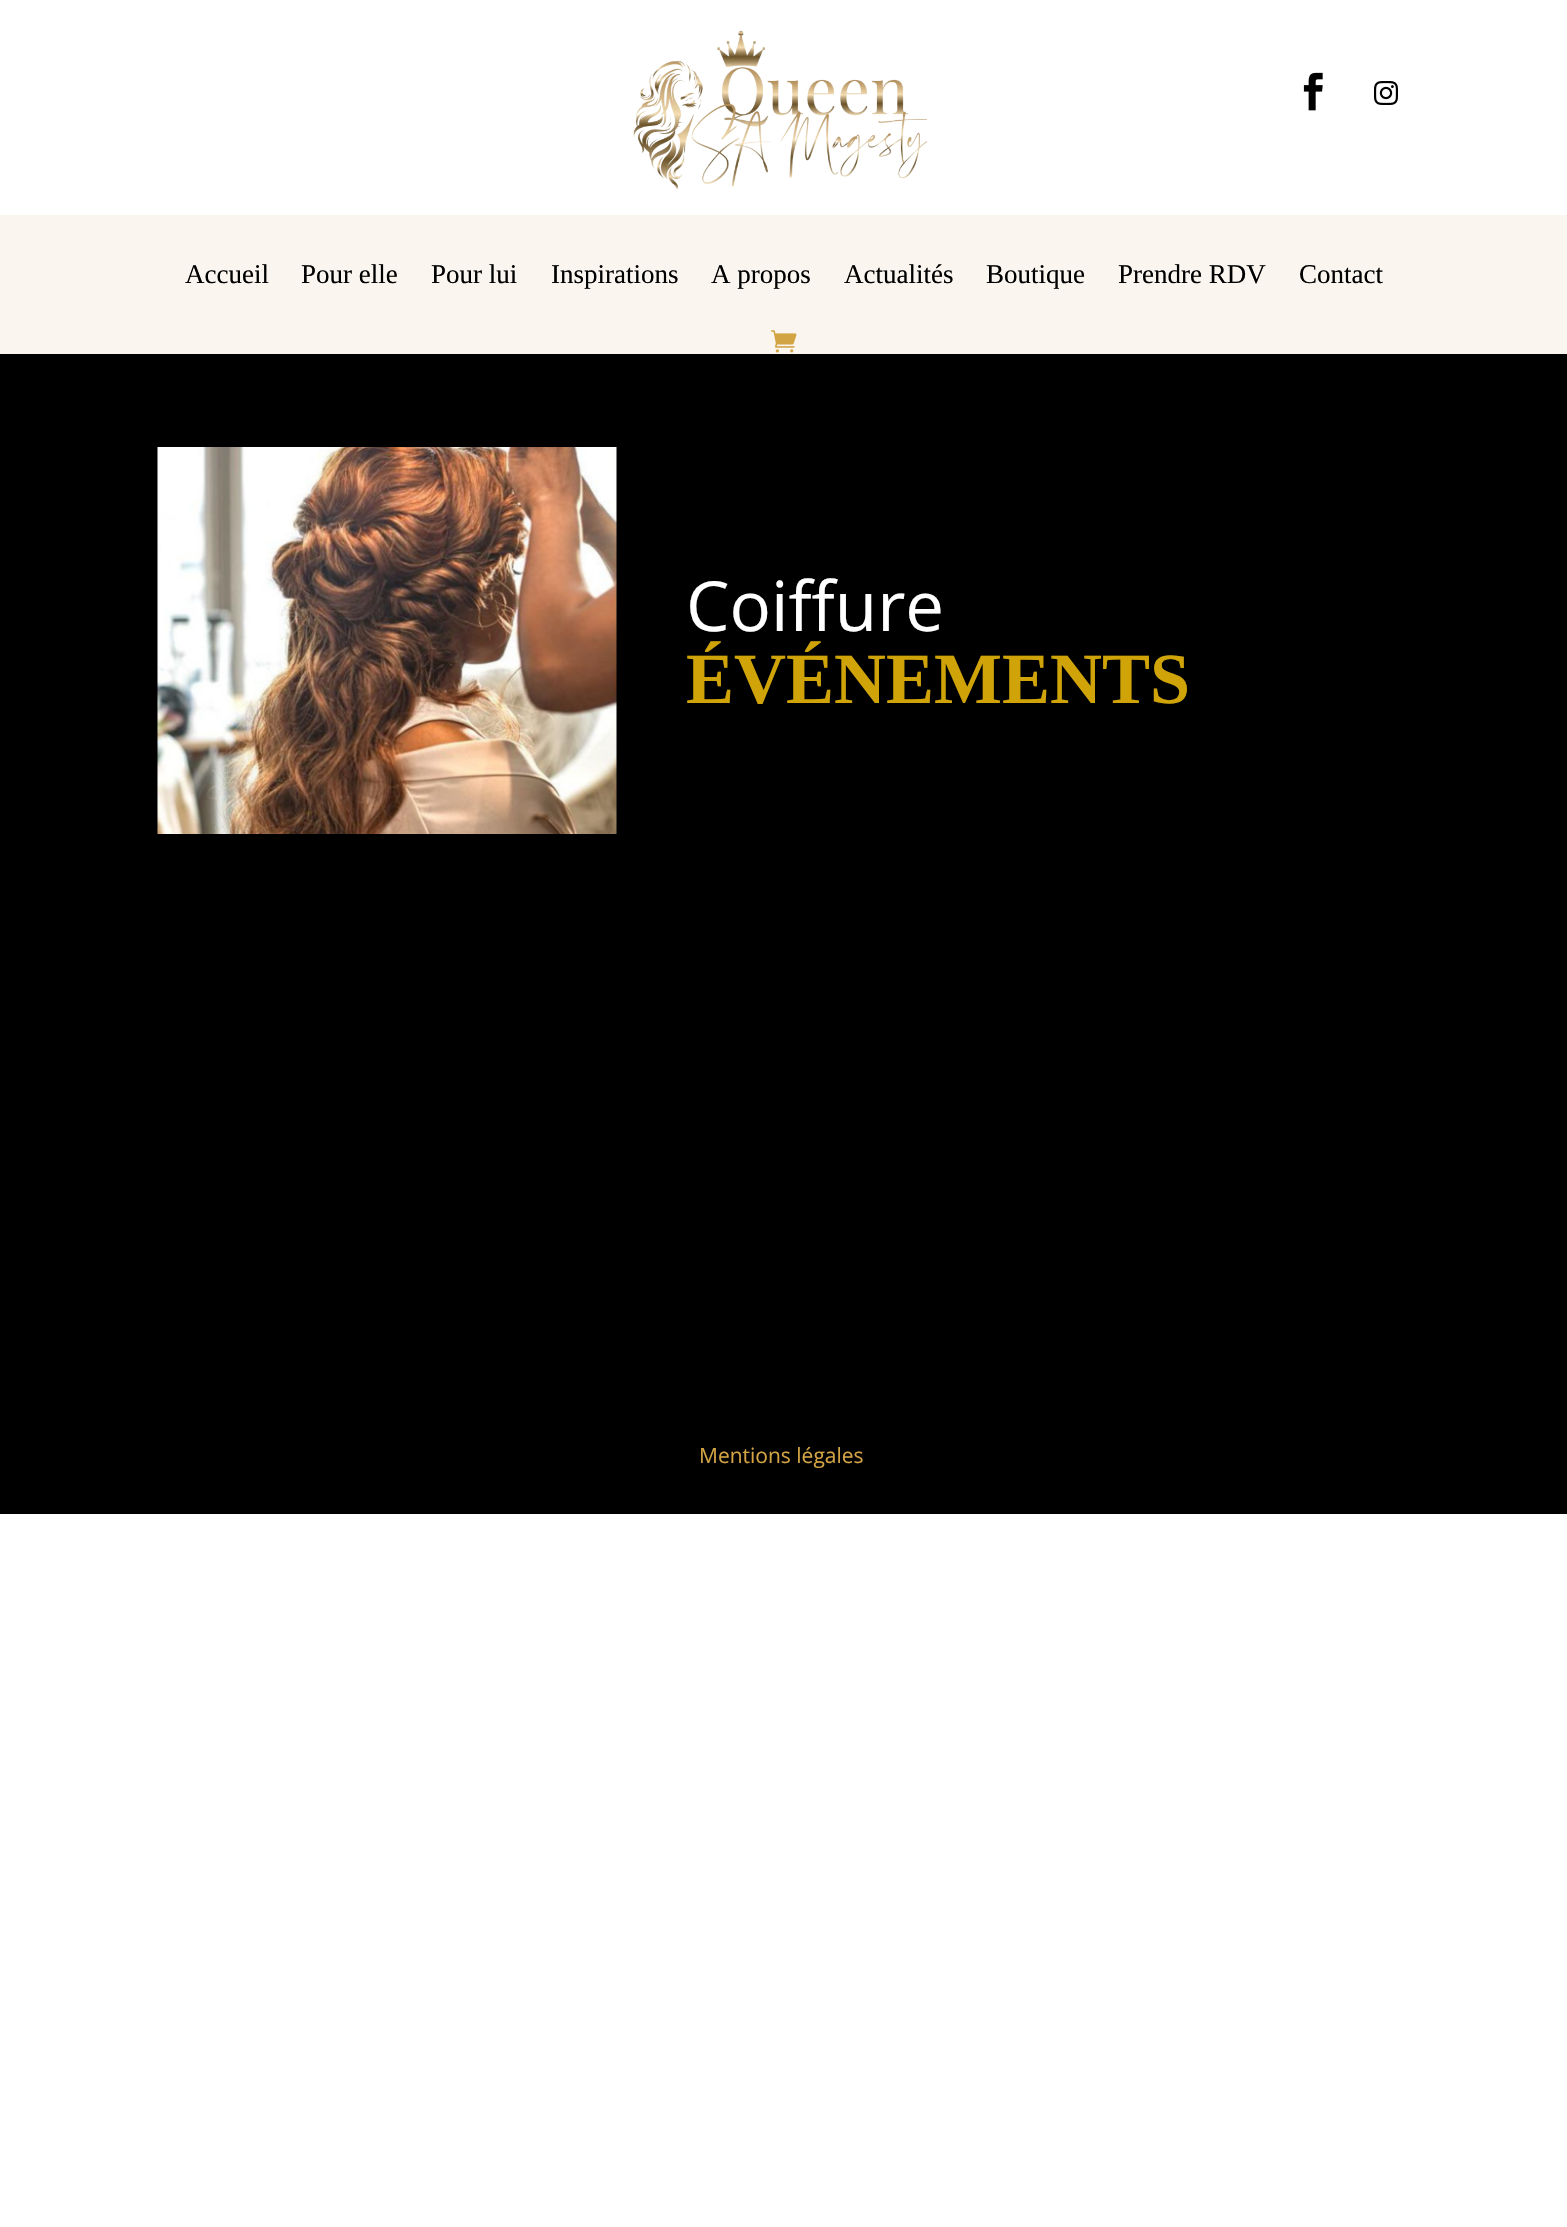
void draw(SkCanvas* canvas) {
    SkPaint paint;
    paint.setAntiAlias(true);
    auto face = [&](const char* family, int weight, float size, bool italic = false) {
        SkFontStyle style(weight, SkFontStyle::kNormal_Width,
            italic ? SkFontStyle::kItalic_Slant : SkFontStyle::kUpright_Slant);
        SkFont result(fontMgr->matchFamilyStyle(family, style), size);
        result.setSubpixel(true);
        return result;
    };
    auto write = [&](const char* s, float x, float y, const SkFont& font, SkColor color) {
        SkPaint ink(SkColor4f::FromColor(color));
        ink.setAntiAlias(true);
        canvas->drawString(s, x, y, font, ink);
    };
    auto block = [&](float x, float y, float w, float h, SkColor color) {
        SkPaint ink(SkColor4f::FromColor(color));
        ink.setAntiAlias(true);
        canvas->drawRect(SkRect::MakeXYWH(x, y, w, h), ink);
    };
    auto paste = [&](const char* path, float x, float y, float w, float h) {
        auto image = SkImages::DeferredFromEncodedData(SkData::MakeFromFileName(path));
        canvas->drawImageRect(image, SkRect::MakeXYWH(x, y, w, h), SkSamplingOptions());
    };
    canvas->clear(SK_ColorWHITE);
    paste("pic1.png", 633, 30, 294, 160);
    paste("pic2.png", 1303, 72, 20, 39);
    paste("pic3.png", 1374, 81, 24, 24);
    block(0, 215, 1567, 139, SkColorSetRGB(250, 245, 238));
    auto kFont1 = face("Liberation Serif", 400, 27);
    write("Accueil", 185, 283, kFont1, SK_ColorBLACK);
    write("Pour elle", 301, 283, kFont1, SK_ColorBLACK);
    write("Pour lui", 431, 283, kFont1, SK_ColorBLACK);
    write("Inspirations", 551, 283, kFont1, SK_ColorBLACK);
    write("A propos", 711, 283, kFont1, SK_ColorBLACK);
    write("Actualités", 844, 283, kFont1, SK_ColorBLACK);
    write("Boutique", 986, 283, kFont1, SK_ColorBLACK);
    write("Prendre RDV", 1118, 283, kFont1, SK_ColorBLACK);
    write("Contact", 1299, 283, kFont1, SK_ColorBLACK);
    paste("pic4.png", 771, 330, 26, 23);
    block(0, 354, 1567, 1160, SK_ColorBLACK);
    paste("pic5.png", 157, 447, 460, 387);
    auto kFont2 = face("Open Sans", 400, 69);
    write("Coiffure", 686, 631, kFont2, SK_ColorWHITE);
    auto kFont3 = face("Liberation Serif", 700, 72);
    write("ÉVÉNEMENTS", 686, 703, kFont3, SkColorSetRGB(208, 164, 8));
    auto kFont4 = face("Open Sans", 400, 21);
    write("Mentions légales", 699, 1463, kFont4, SkColorSetRGB(211, 164, 68));
}
